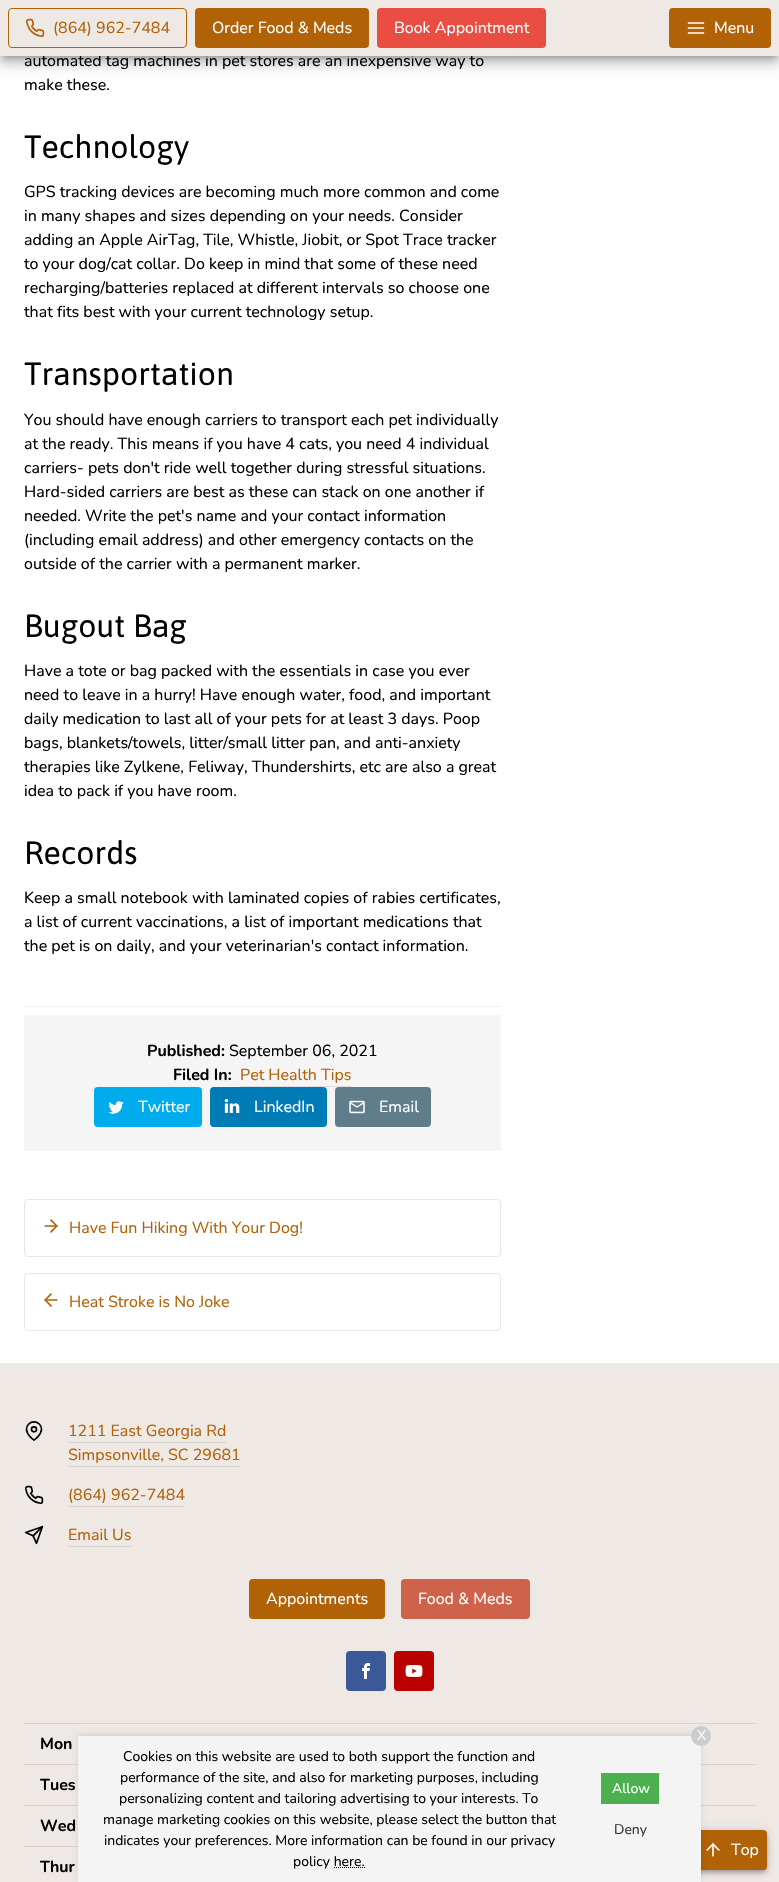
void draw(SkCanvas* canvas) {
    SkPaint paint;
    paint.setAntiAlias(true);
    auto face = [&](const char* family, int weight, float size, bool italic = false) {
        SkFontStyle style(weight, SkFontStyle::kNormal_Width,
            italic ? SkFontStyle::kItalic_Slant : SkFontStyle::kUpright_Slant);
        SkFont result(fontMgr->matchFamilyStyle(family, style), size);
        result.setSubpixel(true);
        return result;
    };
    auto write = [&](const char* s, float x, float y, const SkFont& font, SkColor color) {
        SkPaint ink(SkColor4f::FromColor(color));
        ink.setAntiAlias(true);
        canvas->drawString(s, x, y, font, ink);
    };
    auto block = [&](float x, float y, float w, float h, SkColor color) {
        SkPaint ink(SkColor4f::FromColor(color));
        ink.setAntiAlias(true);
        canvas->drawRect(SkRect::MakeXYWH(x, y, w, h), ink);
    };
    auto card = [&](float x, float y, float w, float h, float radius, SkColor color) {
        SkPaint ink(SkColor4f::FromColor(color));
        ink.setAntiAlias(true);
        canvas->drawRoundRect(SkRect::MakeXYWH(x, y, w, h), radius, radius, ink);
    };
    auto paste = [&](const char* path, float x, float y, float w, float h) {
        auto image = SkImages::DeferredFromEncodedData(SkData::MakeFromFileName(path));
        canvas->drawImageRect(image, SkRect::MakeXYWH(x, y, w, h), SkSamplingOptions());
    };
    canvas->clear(SK_ColorWHITE);
    paint.setColor(SkColorSetARGB(31, 0, 0, 0));
    paint.setMaskFilter(SkMaskFilter::MakeBlur(kNormal_SkBlurStyle, 7));
    canvas->drawRect(SkRect::MakeXYWH(-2, 1, 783, 60), paint);
    paint.setMaskFilter(nullptr);
    paint.setColor(SkColorSetARGB(36, 0, 0, 0));
    paint.setMaskFilter(SkMaskFilter::MakeBlur(kNormal_SkBlurStyle, 5));
    canvas->drawRect(SkRect::MakeXYWH(-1, 7, 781, 58), paint);
    paint.setMaskFilter(nullptr);
    paint.setColor(SkColorSetARGB(51, 0, 0, 0));
    paint.setMaskFilter(SkMaskFilter::MakeBlur(kNormal_SkBlurStyle, 2.5f));
    canvas->drawRect(SkRect::MakeXYWH(3, 8, 773, 50), paint);
    paint.setMaskFilter(nullptr);
    auto kFont1 = face("Nunito", 400, 16);
    write("automated tag machines in pet stores are an inexpensive way to", 24, 66, kFont1, SK_ColorBLACK);
    block(0, 0, 779, 56, SkColorSetRGB(239, 233, 230));
    paint.setStyle(SkPaint::kStroke_Style);
    paint.setStrokeWidth(1);
    paint.setColor(SkColorSetRGB(177, 97, 6));
    canvas->drawRoundRect(SkRect::MakeXYWH(8.5f, 8.5f, 178, 39), 3.5f, 3.5f, paint);
    paste("pic1.png", 26, 18, 19, 19);
    write("(864) 962-7484", 53, 33, kFont1, SkColorSetRGB(177, 97, 6));
    card(195, 8, 174, 40, 4, SkColorSetRGB(177, 97, 6));
    write("Order Food & Meds", 212, 33, kFont1, SK_ColorWHITE);
    card(377, 8, 169, 40, 4, SkColorSetRGB(234, 78, 67));
    write("Book Appointment", 394, 33, kFont1, SK_ColorWHITE);
    card(669, 8, 102, 40, 4, SkColorSetRGB(177, 97, 6));
    paste("pic2.png", 687, 22, 18, 12);
    write("Menu", 714, 33, kFont1, SK_ColorWHITE);
    write("make these.", 24, 90, kFont1, SK_ColorBLACK);
    auto kFont2 = face("Asap", 400, 32);
    write("Technology", 24, 158, kFont2, SK_ColorBLACK);
    write("GPS tracking devices are becoming much more common and come", 24, 197, kFont1, SK_ColorBLACK);
    write("in many shapes and sizes depending on your needs. Consider", 24, 221, kFont1, SK_ColorBLACK);
    write("adding an Apple AirTag, Tile, Whistle, Jiobit, or Spot Trace tracker", 24, 245, kFont1, SK_ColorBLACK);
    write("to your dog/cat collar. Do keep in mind that some of these need", 24, 269, kFont1, SK_ColorBLACK);
    write("recharging/batteries replaced at different intervals so choose one", 24, 293, kFont1, SK_ColorBLACK);
    write("that fits best with your current technology setup.", 24, 317, kFont1, SK_ColorBLACK);
    write("Transportation", 24, 385, kFont2, SK_ColorBLACK);
    write("You should have enough carriers to transport each pet individually", 24, 425, kFont1, SK_ColorBLACK);
    write("at the ready. This means if you have 4 cats, you need 4 individual", 24, 449, kFont1, SK_ColorBLACK);
    write("carriers- pets don't ride well together during stressful situations.", 24, 473, kFont1, SK_ColorBLACK);
    write("Hard-sided carriers are best as these can stack on one another if", 24, 497, kFont1, SK_ColorBLACK);
    write("needed. Write the pet's name and your contact information", 24, 521, kFont1, SK_ColorBLACK);
    write("(including email address) and other emergency contacts on the", 24, 545, kFont1, SK_ColorBLACK);
    write("outside of the carrier with a permanent marker.", 24, 569, kFont1, SK_ColorBLACK);
    write("Bugout Bag", 24, 637, kFont2, SK_ColorBLACK);
    write("Have a tote or bag packed with the essentials in case you ever", 24, 676, kFont1, SK_ColorBLACK);
    write("need to leave in a hurry! Have enough water, food, and important", 24, 700, kFont1, SK_ColorBLACK);
    write("daily medication to last all of your pets for at least 3 days. Poop", 24, 724, kFont1, SK_ColorBLACK);
    write("bags, blankets/towels, litter/small litter pan, and anti-anxiety", 24, 748, kFont1, SK_ColorBLACK);
    write("therapies like Zylkene, Feliway, Thundershirts, etc are also a great", 24, 772, kFont1, SK_ColorBLACK);
    write("idea to pack if you have room.", 24, 796, kFont1, SK_ColorBLACK);
    write("Records", 24, 864, kFont2, SK_ColorBLACK);
    write("Keep a small notebook with laminated copies of rabies certificates,", 24, 903, kFont1, SK_ColorBLACK);
    write("a list of current vaccinations, a list of important medications that", 24, 927, kFont1, SK_ColorBLACK);
    write("the pet is on daily, and your veterinarian's contact information.", 24, 951, kFont1, SK_ColorBLACK);
    block(24, 1006, 477, 1, SkColorSetRGB(242, 242, 242));
    block(24, 1015, 477, 136, SkColorSetRGB(245, 245, 245));
    auto kFont3 = face("Nunito", 700, 16);
    write("Published:", 147, 1056, kFont3, SK_ColorBLACK);
    write("September 06, 2021", 229, 1056, kFont1, SK_ColorBLACK);
    write("Filed In:", 173, 1080, kFont3, SK_ColorBLACK);
    write("Pet Health Tips", 240, 1080, kFont1, SkColorSetRGB(177, 97, 6));
    block(240, 1086, 112, 1, SkColorSetRGB(221, 221, 221));
    card(94, 1087, 108, 40, 4, SkColorSetRGB(0, 172, 237));
    paste("pic3.png", 108, 1101, 16, 13);
    write("Twitter", 138, 1112, kFont1, SK_ColorWHITE);
    card(210, 1087, 117, 40, 4, SkColorSetRGB(0, 123, 182));
    paste("pic4.png", 224, 1099, 16, 14);
    write("LinkedIn", 254, 1112, kFont1, SK_ColorWHITE);
    card(335, 1087, 96, 40, 4, SkColorSetRGB(96, 125, 139));
    paste("pic5.png", 349, 1100, 16, 14);
    write("Email", 379, 1112, kFont1, SK_ColorWHITE);
    paint.setColor(SkColorSetRGB(230, 230, 230));
    canvas->drawRoundRect(SkRect::MakeXYWH(24.5f, 1199.5f, 476, 57), 3.5f, 3.5f, paint);
    paste("pic6.png", 44, 1219, 14, 14);
    write("Have Fun Hiking With Your Dog!", 69, 1233, kFont1, SkColorSetRGB(177, 97, 6));
    canvas->drawRoundRect(SkRect::MakeXYWH(24.5f, 1273.5f, 476, 57), 3.5f, 3.5f, paint);
    paste("pic7.png", 44, 1293, 14, 14);
    write("Heat Stroke is No Joke", 69, 1307, kFont1, SkColorSetRGB(177, 97, 6));
    block(0, 1363, 779, 519, SkColorSetRGB(239, 233, 230));
    paste("pic8.png", 25, 1421, 18, 20);
    write("1211 East Georgia Rd", 68, 1436, kFont1, SkColorSetRGB(177, 97, 6));
    block(68, 1442, 158, 1, SkColorSetRGB(215, 210, 207));
    write("Simpsonville, SC 29681", 68, 1460, kFont1, SkColorSetRGB(177, 97, 6));
    block(68, 1466, 173, 1, SkColorSetRGB(215, 210, 207));
    paste("pic9.png", 25, 1485, 19, 19);
    write("(864) 962-7484", 68, 1500, kFont1, SkColorSetRGB(177, 97, 6));
    block(68, 1506, 117, 1, SkColorSetRGB(215, 210, 207));
    paste("pic10.png", 24, 1525, 20, 20);
    write("Email Us", 68, 1540, kFont1, SkColorSetRGB(177, 97, 6));
    block(68, 1546, 63, 1, SkColorSetRGB(215, 210, 207));
    card(249, 1579, 136, 40, 4, SkColorSetRGB(177, 97, 6));
    write("Appointments", 266, 1604, kFont1, SK_ColorWHITE);
    card(401, 1579, 129, 40, 4, SkColorSetRGB(207, 98, 74));
    write("Food & Meds", 418, 1604, kFont1, SK_ColorWHITE);
    card(346, 1651, 40, 40, 4, SkColorSetRGB(59, 89, 152));
    paste("pic11.png", 362, 1663, 8, 16);
    card(394, 1651, 40, 40, 4, SkColorSetRGB(187, 0, 0));
    paste("pic12.png", 405, 1665, 18, 12);
    block(24, 1723, 732, 1, SkColorSetRGB(215, 210, 207));
    write("Mon", 40, 1749, kFont3, SK_ColorBLACK);
    block(24, 1764, 732, 1, SkColorSetRGB(215, 210, 207));
    write("Tues", 40, 1790, kFont3, SK_ColorBLACK);
    block(24, 1805, 732, 1, SkColorSetRGB(215, 210, 207));
    write("Wed", 40, 1831, kFont3, SK_ColorBLACK);
    block(24, 1846, 54, 1, SkColorSetRGB(215, 210, 207));
    write("Thur", 40, 1872, kFont3, SK_ColorBLACK);
    paint.setStyle(SkPaint::kFill_Style);
    paint.setColor(SkColorSetARGB(31, 0, 0, 0));
    paint.setMaskFilter(SkMaskFilter::MakeBlur(kNormal_SkBlurStyle, 5));
    canvas->drawRoundRect(SkRect::MakeXYWH(695, 1831, 72, 40), 4, 4, paint);
    paint.setMaskFilter(nullptr);
    paint.setColor(SkColorSetARGB(36, 0, 0, 0));
    paint.setMaskFilter(SkMaskFilter::MakeBlur(kNormal_SkBlurStyle, 2.5f));
    canvas->drawRoundRect(SkRect::MakeXYWH(695, 1834, 72, 40), 4, 4, paint);
    paint.setMaskFilter(nullptr);
    paint.setColor(SkColorSetARGB(51, 0, 0, 0));
    paint.setMaskFilter(SkMaskFilter::MakeBlur(kNormal_SkBlurStyle, 2));
    canvas->drawRoundRect(SkRect::MakeXYWH(696, 1833, 70, 38), 3, 3, paint);
    paint.setMaskFilter(nullptr);
    card(695, 1830, 72, 40, 4, SkColorSetRGB(177, 97, 6));
    paste("pic13.png", 706, 1843, 14, 14);
    paint.setColor(SkColorSetARGB(26, 0, 0, 0));
    paint.setMaskFilter(SkMaskFilter::MakeBlur(kNormal_SkBlurStyle, 2.5f));
    canvas->drawRect(SkRect::MakeXYWH(78, 1734, 623, 146), paint);
    paint.setMaskFilter(nullptr);
    block(78, 1736, 623, 146, SkColorSetRGB(244, 244, 244));
    paint.setColor(SkColorSetRGB(204, 204, 204));
    canvas->drawCircle(701, 1736, 10, paint);
    auto kFont4 = face("Nunito", 400, 14);
    write("X", 697, 1740, kFont4, SK_ColorWHITE);
    write("Cookies on this website are used to both support the function and", 123, 1761, kFont4, SK_ColorBLACK);
    write("performance of the site, and also for marketing purposes, including", 120, 1782, kFont4, SK_ColorBLACK);
    write("personalizing content and tailoring advertising to your interests. To", 119, 1803, kFont4, SK_ColorBLACK);
    write("manage marketing cookies on this website, please select the button that", 103, 1824, kFont4, SK_ColorBLACK);
    write("indicates your preferences. More information can be found in our privacy", 104, 1845, kFont4, SK_ColorBLACK);
    write("policy here.", 293, 1866, kFont4, SK_ColorBLACK);
    paint.setStyle(SkPaint::kStroke_Style);
    paint.setColor(SK_ColorBLACK);
    paint.setPathEffect(SkDashPathEffect::Make({{1, 1}}, 0));
    canvas->drawPath(SkPathBuilder().moveTo(334, 1867.5f).lineTo(365, 1867.5f).detach(), paint);
    paint.setPathEffect(nullptr);
    block(601, 1773, 58, 31, SkColorSetRGB(76, 175, 80));
    write("Allow", 612, 1793, kFont4, SK_ColorWHITE);
    write("Deny", 614, 1834, kFont4, SkColorSetRGB(51, 51, 51));
    write("Top", 731, 1855, kFont1, SK_ColorWHITE);
}
